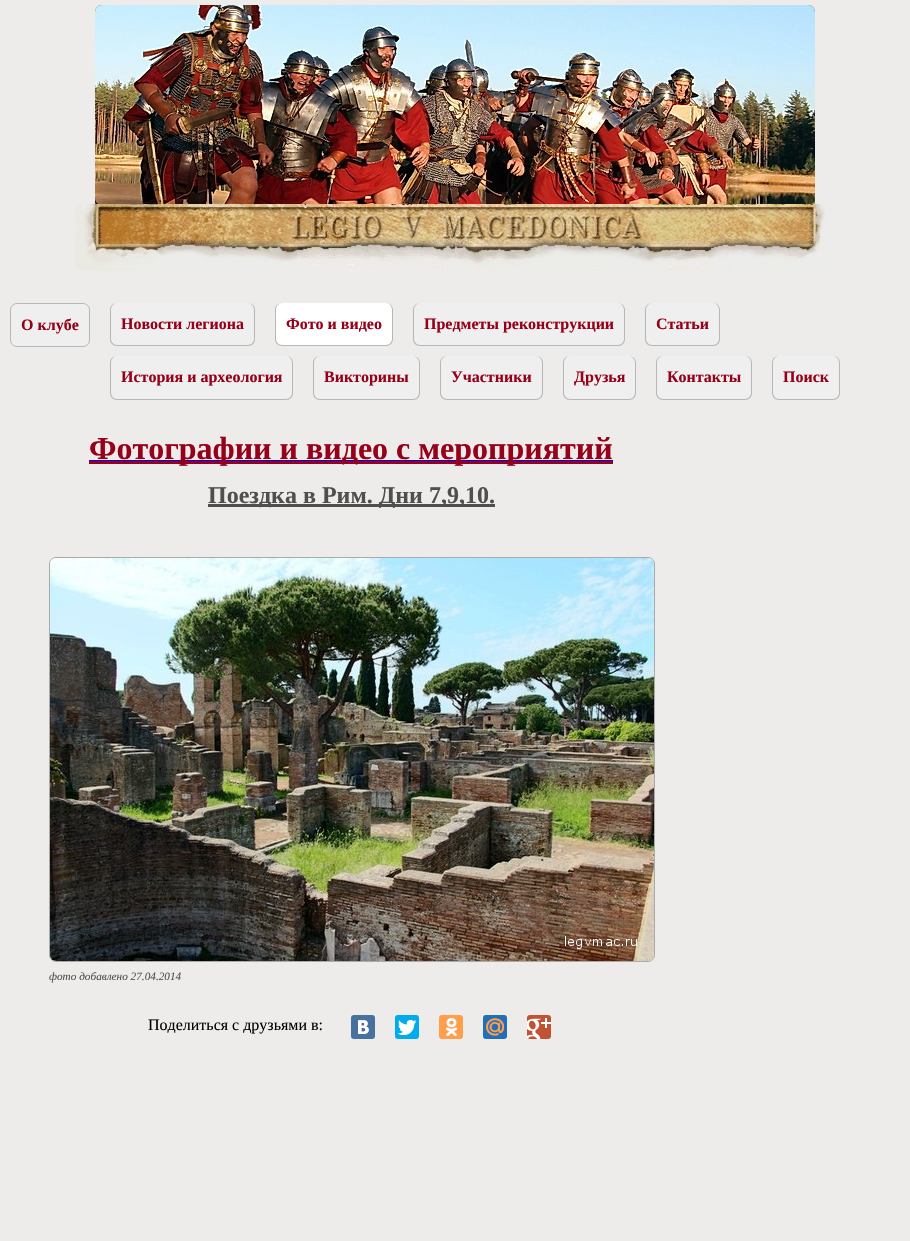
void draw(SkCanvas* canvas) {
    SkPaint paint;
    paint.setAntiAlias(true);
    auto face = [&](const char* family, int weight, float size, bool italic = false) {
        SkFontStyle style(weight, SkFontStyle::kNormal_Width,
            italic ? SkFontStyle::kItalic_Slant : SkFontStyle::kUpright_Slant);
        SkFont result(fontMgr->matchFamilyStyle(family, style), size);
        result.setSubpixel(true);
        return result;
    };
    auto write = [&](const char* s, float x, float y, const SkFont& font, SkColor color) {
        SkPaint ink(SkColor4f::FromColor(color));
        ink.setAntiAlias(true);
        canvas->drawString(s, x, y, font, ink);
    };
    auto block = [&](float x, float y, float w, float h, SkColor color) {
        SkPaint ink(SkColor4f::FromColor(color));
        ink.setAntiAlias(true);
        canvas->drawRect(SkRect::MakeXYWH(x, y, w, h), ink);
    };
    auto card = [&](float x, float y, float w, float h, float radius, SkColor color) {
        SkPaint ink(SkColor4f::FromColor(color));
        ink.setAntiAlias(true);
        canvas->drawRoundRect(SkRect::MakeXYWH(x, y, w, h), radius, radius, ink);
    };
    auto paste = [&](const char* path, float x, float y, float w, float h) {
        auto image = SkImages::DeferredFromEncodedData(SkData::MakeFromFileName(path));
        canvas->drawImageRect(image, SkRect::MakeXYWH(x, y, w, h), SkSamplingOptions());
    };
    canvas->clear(SkColorSetRGB(237, 236, 234));
    paste("pic1.png", 95, 5, 720, 199);
    paste("pic2.png", 95, 5, 720, 199);
    paste("pic3.png", 75, 204, 757, 67);
    paint.setColor(SkColorSetRGB(239, 239, 239));
    canvas->drawRoundRect(SkRect::MakeXYWH(10.5f, 303.5f, 79, 43), 6.5f, 6.5f, paint);
    paint.setStyle(SkPaint::kStroke_Style);
    paint.setStrokeWidth(1);
    paint.setColor(SkColorSetRGB(183, 183, 182));
    canvas->drawRoundRect(SkRect::MakeXYWH(10.5f, 303.5f, 79, 43), 6.5f, 6.5f, paint);
    auto kFont1 = face("Liberation Serif", 700, 16);
    write("О клубе", 21, 330, kFont1, SkColorSetRGB(150, 0, 24));
    card(110, 303, 145, 43, 7, SkColorSetRGB(239, 239, 239));
    paint.setStyle(SkPaint::kFill_Style);
    canvas->drawPath(SkPathBuilder(SkPathFillType::kEvenOdd).moveTo(117, 303).lineTo(248, 303).cubicTo(252, 303, 255, 306, 255, 310).lineTo(255, 339).cubicTo(255, 343, 252, 346, 248, 346).lineTo(117, 346).cubicTo(113, 346, 110, 343, 110, 339).lineTo(110, 310).cubicTo(110, 306, 113, 303, 117, 303).close().moveTo(117, 303).lineTo(248, 303).cubicTo(251, 303, 254, 306, 254, 310).lineTo(254, 339).cubicTo(254, 342, 251, 345, 248, 345).lineTo(117, 345).cubicTo(114, 345, 111, 342, 111, 339).lineTo(111, 310).cubicTo(111, 306, 114, 303, 117, 303).close().detach(), paint);
    write("Новости легиона", 121, 329, kFont1, SkColorSetRGB(150, 0, 24));
    card(275, 303, 118, 43, 7, SK_ColorWHITE);
    canvas->drawPath(SkPathBuilder(SkPathFillType::kEvenOdd).moveTo(282, 303).lineTo(386, 303).cubicTo(390, 303, 393, 306, 393, 310).lineTo(393, 339).cubicTo(393, 343, 390, 346, 386, 346).lineTo(282, 346).cubicTo(278, 346, 275, 343, 275, 339).lineTo(275, 310).cubicTo(275, 306, 278, 303, 282, 303).close().moveTo(282, 303).lineTo(386, 303).cubicTo(389, 303, 392, 306, 392, 310).lineTo(392, 339).cubicTo(392, 342, 389, 345, 386, 345).lineTo(282, 345).cubicTo(279, 345, 276, 342, 276, 339).lineTo(276, 310).cubicTo(276, 306, 279, 303, 282, 303).close().detach(), paint);
    write("Фото и видео", 286, 329, kFont1, SkColorSetRGB(150, 0, 24));
    card(413, 303, 212, 43, 7, SkColorSetRGB(239, 239, 239));
    canvas->drawPath(SkPathBuilder(SkPathFillType::kEvenOdd).moveTo(420, 303).lineTo(618, 303).cubicTo(622, 303, 625, 306, 625, 310).lineTo(625, 339).cubicTo(625, 343, 622, 346, 618, 346).lineTo(420, 346).cubicTo(416, 346, 413, 343, 413, 339).lineTo(413, 310).cubicTo(413, 306, 416, 303, 420, 303).close().moveTo(420, 303).lineTo(618, 303).cubicTo(621, 303, 624, 306, 624, 310).lineTo(624, 339).cubicTo(624, 342, 621, 345, 618, 345).lineTo(420, 345).cubicTo(417, 345, 414, 342, 414, 339).lineTo(414, 310).cubicTo(414, 306, 417, 303, 420, 303).close().detach(), paint);
    write("Предметы реконструкции", 424, 329, kFont1, SkColorSetRGB(150, 0, 24));
    card(645, 303, 75, 43, 7, SkColorSetRGB(239, 239, 239));
    canvas->drawPath(SkPathBuilder(SkPathFillType::kEvenOdd).moveTo(652, 303).lineTo(713, 303).cubicTo(717, 303, 720, 306, 720, 310).lineTo(720, 339).cubicTo(720, 343, 717, 346, 713, 346).lineTo(652, 346).cubicTo(648, 346, 645, 343, 645, 339).lineTo(645, 310).cubicTo(645, 306, 648, 303, 652, 303).close().moveTo(652, 303).lineTo(713, 303).cubicTo(716, 303, 719, 306, 719, 310).lineTo(719, 339).cubicTo(719, 342, 716, 345, 713, 345).lineTo(652, 345).cubicTo(649, 345, 646, 342, 646, 339).lineTo(646, 310).cubicTo(646, 306, 649, 303, 652, 303).close().detach(), paint);
    write("Статьи", 656, 329, kFont1, SkColorSetRGB(150, 0, 24));
    card(110, 356, 183, 44, 7, SkColorSetRGB(239, 239, 239));
    canvas->drawPath(SkPathBuilder(SkPathFillType::kEvenOdd).moveTo(117, 356).lineTo(286, 356).cubicTo(290, 356, 293, 359, 293, 363).lineTo(293, 393).cubicTo(293, 397, 290, 400, 286, 400).lineTo(117, 400).cubicTo(113, 400, 110, 397, 110, 393).lineTo(110, 363).cubicTo(110, 359, 113, 356, 117, 356).close().moveTo(117, 356).lineTo(286, 356).cubicTo(289, 356, 292, 359, 292, 363).lineTo(292, 393).cubicTo(292, 396, 289, 399, 286, 399).lineTo(117, 399).cubicTo(114, 399, 111, 396, 111, 393).lineTo(111, 363).cubicTo(111, 359, 114, 356, 117, 356).close().detach(), paint);
    write("История и археология", 121, 382, kFont1, SkColorSetRGB(150, 0, 24));
    card(313, 356, 107, 44, 7, SkColorSetRGB(239, 239, 239));
    canvas->drawPath(SkPathBuilder(SkPathFillType::kEvenOdd).moveTo(320, 356).lineTo(413, 356).cubicTo(417, 356, 420, 359, 420, 363).lineTo(420, 393).cubicTo(420, 397, 417, 400, 413, 400).lineTo(320, 400).cubicTo(316, 400, 313, 397, 313, 393).lineTo(313, 363).cubicTo(313, 359, 316, 356, 320, 356).close().moveTo(320, 356).lineTo(413, 356).cubicTo(416, 356, 419, 359, 419, 363).lineTo(419, 393).cubicTo(419, 396, 416, 399, 413, 399).lineTo(320, 399).cubicTo(317, 399, 314, 396, 314, 393).lineTo(314, 363).cubicTo(314, 359, 317, 356, 320, 356).close().detach(), paint);
    write("Викторины", 324, 382, kFont1, SkColorSetRGB(150, 0, 24));
    card(440, 356, 103, 44, 7, SkColorSetRGB(239, 239, 239));
    canvas->drawPath(SkPathBuilder(SkPathFillType::kEvenOdd).moveTo(447, 356).lineTo(536, 356).cubicTo(540, 356, 543, 359, 543, 363).lineTo(543, 393).cubicTo(543, 397, 540, 400, 536, 400).lineTo(447, 400).cubicTo(443, 400, 440, 397, 440, 393).lineTo(440, 363).cubicTo(440, 359, 443, 356, 447, 356).close().moveTo(447, 356).lineTo(536, 356).cubicTo(539, 356, 542, 359, 542, 363).lineTo(542, 393).cubicTo(542, 396, 539, 399, 536, 399).lineTo(447, 399).cubicTo(444, 399, 441, 396, 441, 393).lineTo(441, 363).cubicTo(441, 359, 444, 356, 447, 356).close().detach(), paint);
    write("Участники", 451, 382, kFont1, SkColorSetRGB(150, 0, 24));
    card(563, 356, 73, 44, 7, SkColorSetRGB(239, 239, 239));
    canvas->drawPath(SkPathBuilder(SkPathFillType::kEvenOdd).moveTo(570, 356).lineTo(629, 356).cubicTo(633, 356, 636, 359, 636, 363).lineTo(636, 393).cubicTo(636, 397, 633, 400, 629, 400).lineTo(570, 400).cubicTo(566, 400, 563, 397, 563, 393).lineTo(563, 363).cubicTo(563, 359, 566, 356, 570, 356).close().moveTo(570, 356).lineTo(629, 356).cubicTo(632, 356, 635, 359, 635, 363).lineTo(635, 393).cubicTo(635, 396, 632, 399, 629, 399).lineTo(570, 399).cubicTo(567, 399, 564, 396, 564, 393).lineTo(564, 363).cubicTo(564, 359, 567, 356, 570, 356).close().detach(), paint);
    write("Друзья", 574, 382, kFont1, SkColorSetRGB(150, 0, 24));
    card(656, 356, 96, 44, 7, SkColorSetRGB(239, 239, 239));
    canvas->drawPath(SkPathBuilder(SkPathFillType::kEvenOdd).moveTo(663, 356).lineTo(745, 356).cubicTo(749, 356, 752, 359, 752, 363).lineTo(752, 393).cubicTo(752, 397, 749, 400, 745, 400).lineTo(663, 400).cubicTo(659, 400, 656, 397, 656, 393).lineTo(656, 363).cubicTo(656, 359, 659, 356, 663, 356).close().moveTo(663, 356).lineTo(745, 356).cubicTo(748, 356, 751, 359, 751, 363).lineTo(751, 393).cubicTo(751, 396, 748, 399, 745, 399).lineTo(663, 399).cubicTo(660, 399, 657, 396, 657, 393).lineTo(657, 363).cubicTo(657, 359, 660, 356, 663, 356).close().detach(), paint);
    write("Контакты", 667, 382, kFont1, SkColorSetRGB(150, 0, 24));
    card(772, 356, 68, 44, 7, SkColorSetRGB(239, 239, 239));
    canvas->drawPath(SkPathBuilder(SkPathFillType::kEvenOdd).moveTo(779, 356).lineTo(833, 356).cubicTo(837, 356, 840, 359, 840, 363).lineTo(840, 393).cubicTo(840, 397, 837, 400, 833, 400).lineTo(779, 400).cubicTo(775, 400, 772, 397, 772, 393).lineTo(772, 363).cubicTo(772, 359, 775, 356, 779, 356).close().moveTo(779, 356).lineTo(833, 356).cubicTo(836, 356, 839, 359, 839, 363).lineTo(839, 393).cubicTo(839, 396, 836, 399, 833, 399).lineTo(779, 399).cubicTo(776, 399, 773, 396, 773, 393).lineTo(773, 363).cubicTo(773, 359, 776, 356, 779, 356).close().detach(), paint);
    write("Поиск", 783, 382, kFont1, SkColorSetRGB(150, 0, 24));
    block(89, 461, 524, 3, SkColorSetRGB(150, 0, 24));
    block(89, 460, 524, 1, SkColorSetRGB(0, 0, 238));
    auto kFont2 = face("Liberation Serif", 700, 32);
    write("Фотографии и видео с мероприятий", 89, 459, kFont2, SkColorSetRGB(150, 0, 24));
    block(208, 504, 287, 3, SkColorSetRGB(79, 79, 79));
    auto kFont3 = face("Liberation Serif", 700, 24);
    write("Поездка в Рим. Дни 7,9,10.", 208, 503, kFont3, SkColorSetRGB(79, 79, 79));
    paint.setStyle(SkPaint::kStroke_Style);
    paint.setColor(SkColorSetRGB(170, 170, 170));
    canvas->drawRoundRect(SkRect::MakeXYWH(49.5f, 557.5f, 605, 404), 6.5f, 6.5f, paint);
    paste("pic4.png", 50, 558, 604, 403);
    auto kFont4 = face("Liberation Serif", 400, 11.25f, true);
    write("фото добавлено 27.04.2014", 49, 980, kFont4, SkColorSetRGB(79, 79, 79));
    auto kFont5 = face("Liberation Serif", 400, 16);
    write("Поделиться с друзьями в:", 148, 1030, kFont5, SK_ColorBLACK);
    card(351, 1015, 24, 24, 3, SkColorSetRGB(72, 114, 158));
    paste("pic5.png", 358, 1020, 11, 14);
    card(395, 1015, 24, 24, 3, SkColorSetRGB(0, 172, 237));
    paste("pic6.png", 398, 1020, 18, 15);
    card(439, 1015, 24, 24, 3, SkColorSetRGB(255, 159, 77));
    paste("pic7.png", 446, 1018, 11, 18);
    card(483, 1015, 24, 24, 3, SkColorSetRGB(34, 110, 183));
    paste("pic8.png", 486, 1018, 18, 18);
    card(527, 1015, 24, 24, 3, SkColorSetRGB(194, 82, 52));
    paste("pic9.png", 527, 1018, 24, 21);
}
